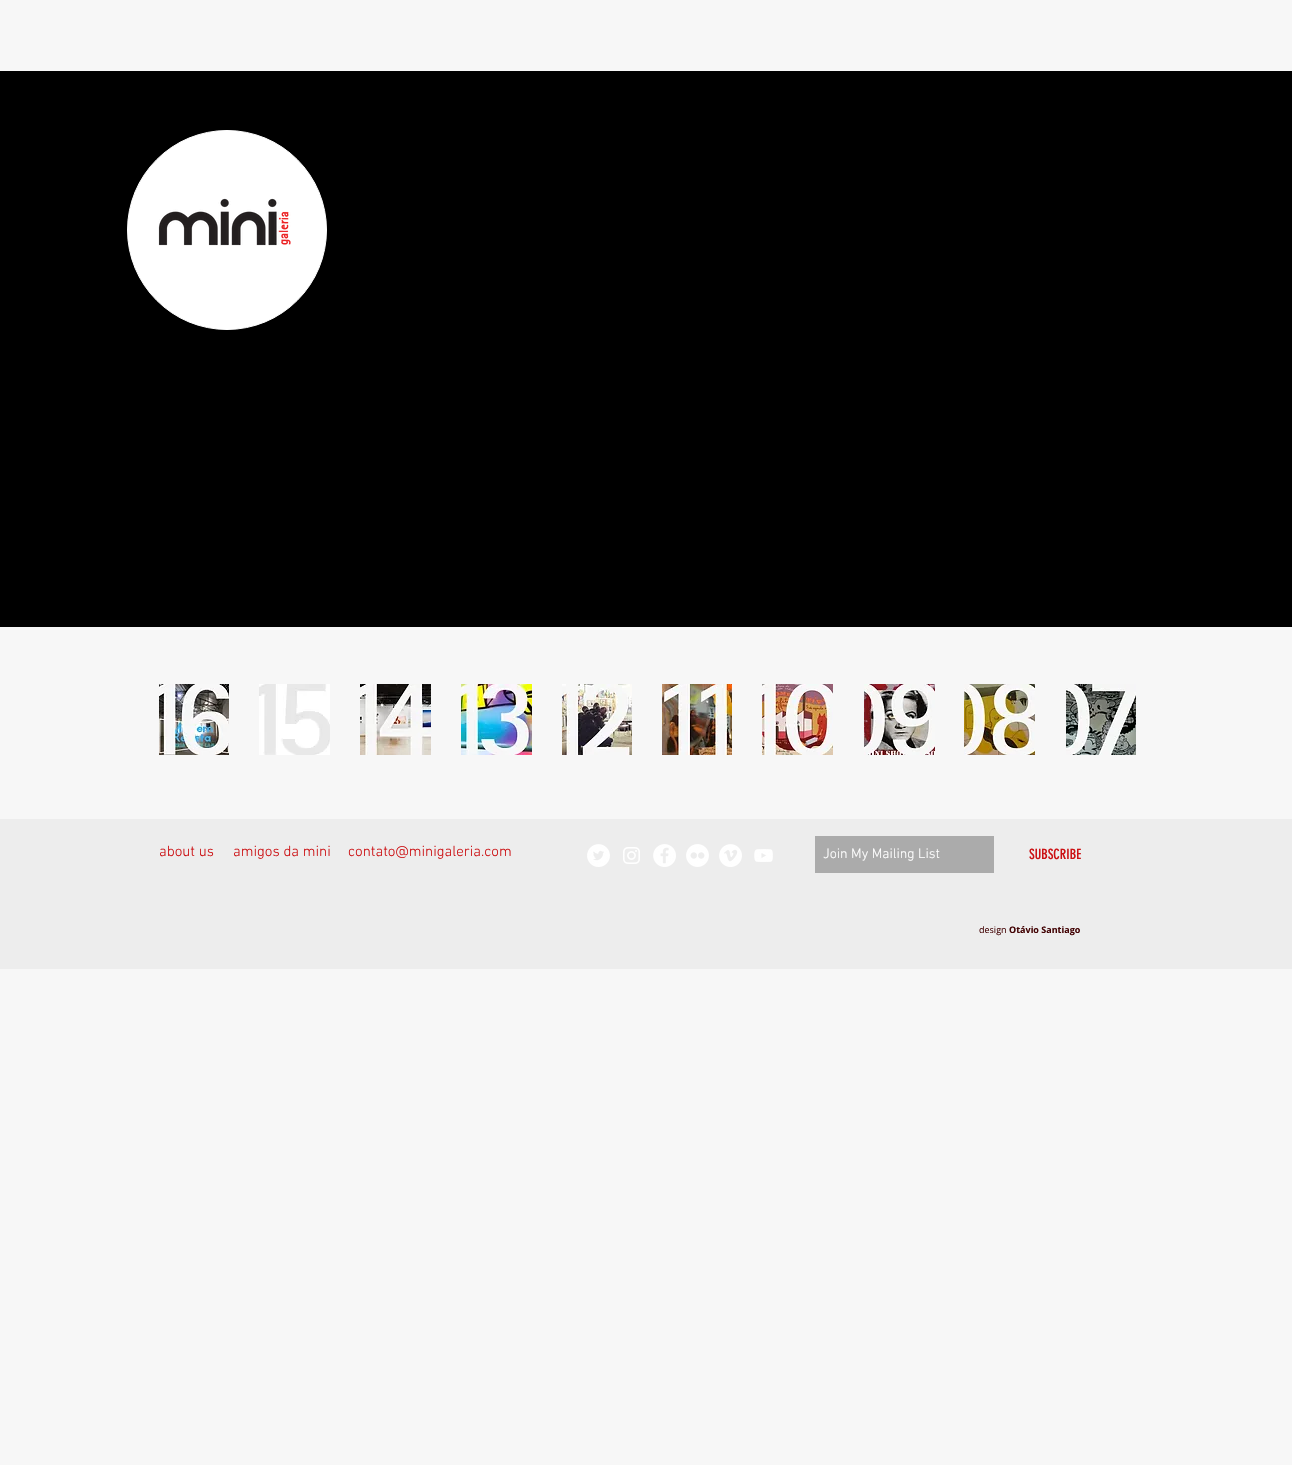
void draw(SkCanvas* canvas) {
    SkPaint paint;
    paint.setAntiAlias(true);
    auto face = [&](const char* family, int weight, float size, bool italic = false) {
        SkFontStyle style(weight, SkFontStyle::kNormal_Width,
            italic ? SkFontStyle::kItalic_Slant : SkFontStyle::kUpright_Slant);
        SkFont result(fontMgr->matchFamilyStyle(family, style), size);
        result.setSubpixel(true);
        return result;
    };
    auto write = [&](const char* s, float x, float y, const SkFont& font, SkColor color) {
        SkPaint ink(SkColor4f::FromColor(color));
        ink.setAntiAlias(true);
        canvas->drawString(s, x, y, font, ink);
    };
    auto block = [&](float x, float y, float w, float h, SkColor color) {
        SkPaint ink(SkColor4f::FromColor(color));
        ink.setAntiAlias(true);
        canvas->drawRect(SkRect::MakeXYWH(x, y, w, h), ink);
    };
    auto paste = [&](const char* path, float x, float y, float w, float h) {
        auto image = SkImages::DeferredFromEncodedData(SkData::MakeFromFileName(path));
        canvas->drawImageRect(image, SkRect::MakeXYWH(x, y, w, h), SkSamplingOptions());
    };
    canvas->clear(SkColorSetRGB(247, 247, 247));
    block(0, 71, 1292, 556, SK_ColorBLACK);
    paste("pic1.png", 159, 684, 70, 71);
    paste("pic2.png", 259, 684, 71, 71);
    paste("pic3.png", 360, 684, 71, 71);
    paste("pic4.png", 461, 684, 71, 71);
    paste("pic5.png", 562, 684, 70, 71);
    paste("pic6.png", 662, 684, 70, 71);
    paste("pic7.png", 762, 684, 71, 71);
    paste("pic8.png", 864, 684, 71, 71);
    paste("pic9.png", 964, 684, 71, 71);
    paste("pic10.png", 1066, 684, 70, 71);
    paint.setColor(SK_ColorWHITE);
    canvas->drawCircle(227, 230, 99.5f, paint);
    paint.setStyle(SkPaint::kStroke_Style);
    paint.setStrokeWidth(1);
    canvas->drawCircle(227, 230, 99.5f, paint);
    paste("pic11.png", 158, 198, 133, 48);
    block(0, 819, 1292, 150, SkColorSetRGB(237, 237, 237));
    auto kFont1 = face("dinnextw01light", 300, 15);
    write("about us", 159, 856, kFont1, SkColorSetRGB(204, 16, 19));
    write("amigos da mini", 233, 856, kFont1, SkColorSetRGB(204, 16, 19));
    write("contato@minigaleria.com", 348, 856, kFont1, SkColorSetRGB(204, 16, 19));
    paste("pic12.png", 587, 844, 23, 23);
    paste("pic13.png", 623, 847, 17, 17);
    paste("pic14.png", 653, 844, 23, 23);
    paste("pic15.png", 686, 844, 23, 23);
    paste("pic16.png", 719, 844, 23, 23);
    paste("pic17.png", 754, 849, 19, 13);
    block(815, 836, 179, 37, SkColorSetRGB(171, 171, 171));
    auto kFont2 = face("dinnextw01light", 300, 14);
    write("Join My Mailing List", 823, 858, kFont2, SK_ColorWHITE);
    auto kFont3 = face("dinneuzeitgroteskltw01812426", 400, 14);
    write("SUBSCRIBE", 1029, 859, kFont3, SkColorSetRGB(204, 16, 19));
    auto kFont4 = face("Open Sans", 400, 9);
    write("design", 979, 933, kFont4, SkColorSetRGB(68, 5, 6));
    auto kFont5 = face("Open Sans", 700, 9);
    write("Otávio Santiago", 1009, 933, kFont5, SkColorSetRGB(68, 5, 6));
}
